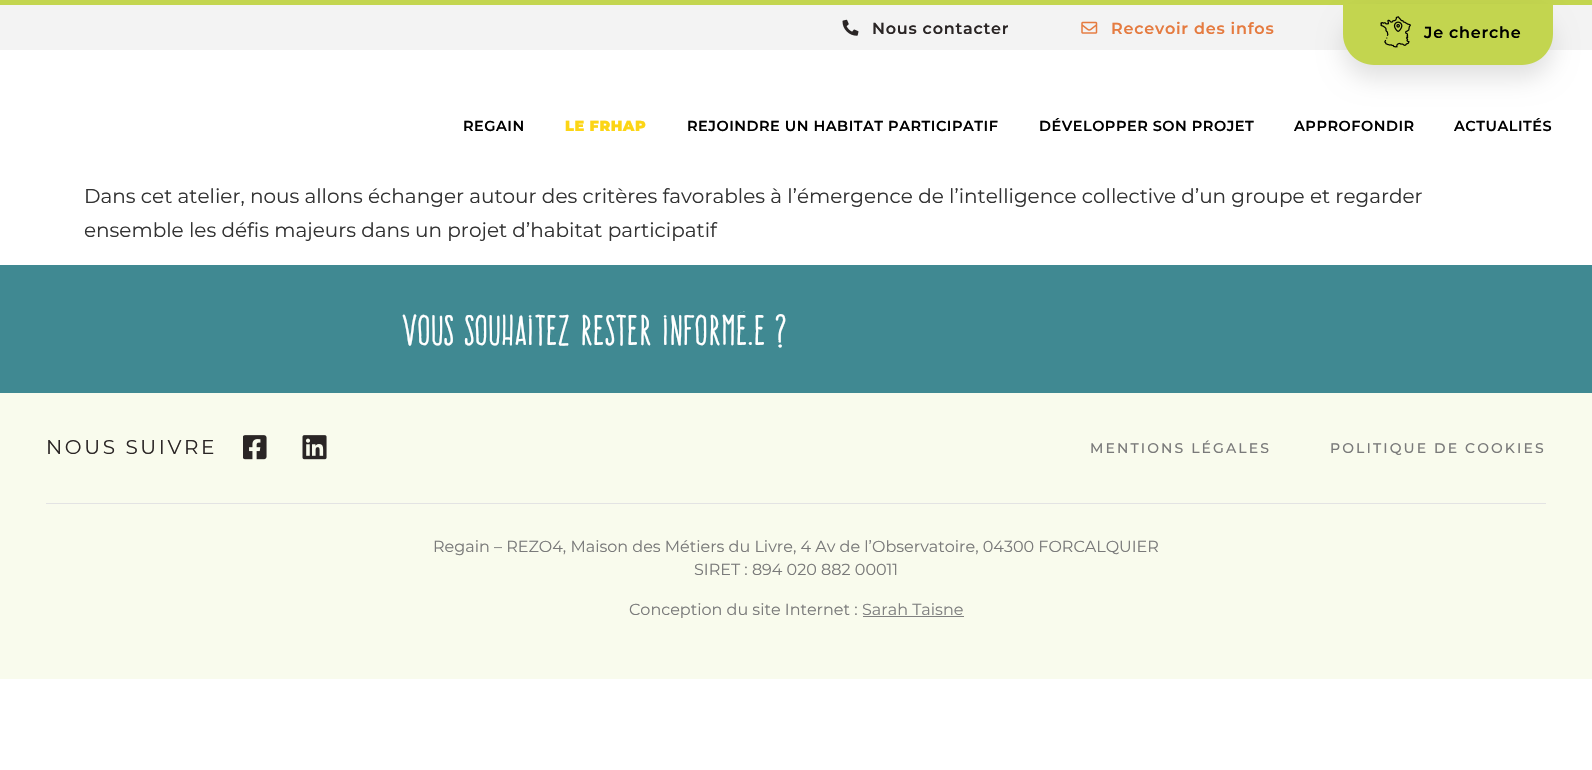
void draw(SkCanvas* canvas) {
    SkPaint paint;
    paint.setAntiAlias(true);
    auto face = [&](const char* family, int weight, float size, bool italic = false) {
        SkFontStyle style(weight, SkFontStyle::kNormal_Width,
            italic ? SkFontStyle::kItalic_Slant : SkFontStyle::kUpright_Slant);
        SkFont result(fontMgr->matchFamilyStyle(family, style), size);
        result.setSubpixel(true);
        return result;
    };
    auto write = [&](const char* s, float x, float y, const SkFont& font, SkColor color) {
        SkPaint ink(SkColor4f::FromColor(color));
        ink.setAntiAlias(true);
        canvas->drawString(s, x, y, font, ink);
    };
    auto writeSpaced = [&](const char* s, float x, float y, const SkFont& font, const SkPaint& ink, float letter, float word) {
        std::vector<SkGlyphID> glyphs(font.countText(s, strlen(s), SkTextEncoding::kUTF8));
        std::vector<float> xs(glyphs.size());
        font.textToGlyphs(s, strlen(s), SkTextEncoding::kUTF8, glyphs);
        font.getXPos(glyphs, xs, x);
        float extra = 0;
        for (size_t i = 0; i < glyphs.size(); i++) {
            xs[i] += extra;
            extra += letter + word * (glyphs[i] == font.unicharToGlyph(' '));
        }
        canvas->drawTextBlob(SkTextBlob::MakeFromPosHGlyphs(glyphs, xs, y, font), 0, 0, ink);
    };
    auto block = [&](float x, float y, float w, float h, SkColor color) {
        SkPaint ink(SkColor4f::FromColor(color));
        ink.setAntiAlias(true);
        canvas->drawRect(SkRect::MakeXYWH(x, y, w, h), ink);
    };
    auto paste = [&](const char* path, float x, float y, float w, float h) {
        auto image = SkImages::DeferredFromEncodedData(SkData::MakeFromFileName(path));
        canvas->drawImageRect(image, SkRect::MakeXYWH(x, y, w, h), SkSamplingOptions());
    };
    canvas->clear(SK_ColorWHITE);
    block(0, 5, 1592, 45, SkColorSetRGB(243, 243, 243));
    block(0, 0, 1592, 5, SkColorSetRGB(195, 213, 79));
    paste("pic1.png", 842, 19, 17, 17);
    auto kFont1 = face("Montserrat", 600, 16);
    paint.setColor(SkColorSetRGB(42, 37, 37));
    writeSpaced("Nous contacter", 872, 34, kFont1, paint, 0.75f, 0);
    paste("pic2.png", 1081, 21, 17, 13);
    paint.setColor(SkColorSetRGB(229, 123, 64));
    writeSpaced("Recevoir des infos", 1111, 34, kFont1, paint, 0.75f, 0);
    paint.setColor(SkColorSetARGB(31, 0, 0, 0));
    paint.setMaskFilter(SkMaskFilter::MakeBlur(kNormal_SkBlurStyle, 12.5f));
    canvas->drawRoundRect(SkRect::MakeXYWH(1343, 16, 210, 62), 31, 31, paint);
    paint.setMaskFilter(nullptr);
    paint.setColor(SkColorSetRGB(195, 213, 79));
    canvas->drawPath(SkPathBuilder().moveTo(1343, 4).lineTo(1553, 4).lineTo(1553, 34).cubicTo(1553, 51, 1539, 65, 1522, 65).lineTo(1374, 65).cubicTo(1357, 65, 1343, 51, 1343, 34).close().detach(), paint);
    paste("pic3.png", 1380, 16, 31, 32);
    paint.setColor(SK_ColorBLACK);
    writeSpaced("Je cherche", 1424, 38, kFont1, paint, 0.75f, 0);
    auto kFont2 = face("Montserrat", 600, 14.5f);
    writeSpaced("REGAIN", 463, 131, kFont2, paint, 0.5f, 0);
    auto kFont3 = face("Montserrat", 900, 14.5f);
    paint.setColor(SkColorSetRGB(252, 213, 21));
    writeSpaced("LE FRHAP", 565, 131, kFont3, paint, 0.5f, 0);
    paint.setColor(SK_ColorBLACK);
    writeSpaced("REJOINDRE UN HABITAT PARTICIPATIF", 687, 131, kFont2, paint, 0.5f, 0);
    writeSpaced("DÉVELOPPER SON PROJET", 1039, 131, kFont2, paint, 0.5f, 0);
    writeSpaced("APPROFONDIR", 1294, 131, kFont2, paint, 0.5f, 0);
    writeSpaced("ACTUALITÉS", 1454, 131, kFont2, paint, 0.5f, 0);
    auto kFont4 = face("Montserrat", 400, 20);
    write("Dans cet atelier, nous allons échanger autour des critères favorables à l’émergence de l’intelligence collective d’un groupe et regarder", 84, 203, kFont4, SkColorSetRGB(51, 51, 51));
    write("ensemble les défis majeurs dans un projet d’habitat participatif", 84, 237, kFont4, SkColorSetRGB(51, 51, 51));
    block(0, 265, 1592, 128, SkColorSetRGB(64, 137, 146));
    auto kFont5 = face("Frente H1", 700, 36);
    paint.setColor(SK_ColorWHITE);
    writeSpaced("Vous souhaitez rester informé.e ?", 402, 345, kFont5, paint, 1.25f, 0);
    block(0, 393, 1592, 286, SkColorSetRGB(249, 251, 237));
    paint.setColor(SkColorSetRGB(42, 37, 37));
    writeSpaced("NOUS SUIVRE", 46, 454, kFont4, paint, 2.6f, 0);
    paste("pic4.png", 243, 435, 24, 25);
    paste("pic5.png", 302, 435, 25, 25);
    auto kFont6 = face("Montserrat", 500, 14);
    paint.setColor(SkColorSetRGB(122, 122, 122));
    writeSpaced("MENTIONS LÉGALES", 1090, 453, kFont6, paint, 2.1f, 0);
    writeSpaced("POLITIQUE DE COOKIES", 1330, 453, kFont6, paint, 2.1f, 0);
    block(46, 503, 1500, 1, SkColorSetRGB(227, 227, 227));
    auto kFont7 = face("Montserrat", 400, 16);
    write("Regain – REZO4, Maison des Métiers du Livre, 4 Av de l’Observatoire, 04300 FORCALQUIER", 433, 552, kFont7, SkColorSetRGB(122, 122, 122));
    write("SIRET : 894 020 882 00011", 694, 575, kFont7, SkColorSetRGB(122, 122, 122));
    write("Conception du site Internet :", 629, 615, kFont7, SkColorSetRGB(122, 122, 122));
    write("Sarah Taisne", 862, 615, kFont7, SkColorSetRGB(128, 128, 128));
    block(863, 616, 101, 1, SkColorSetRGB(128, 128, 128));
}
